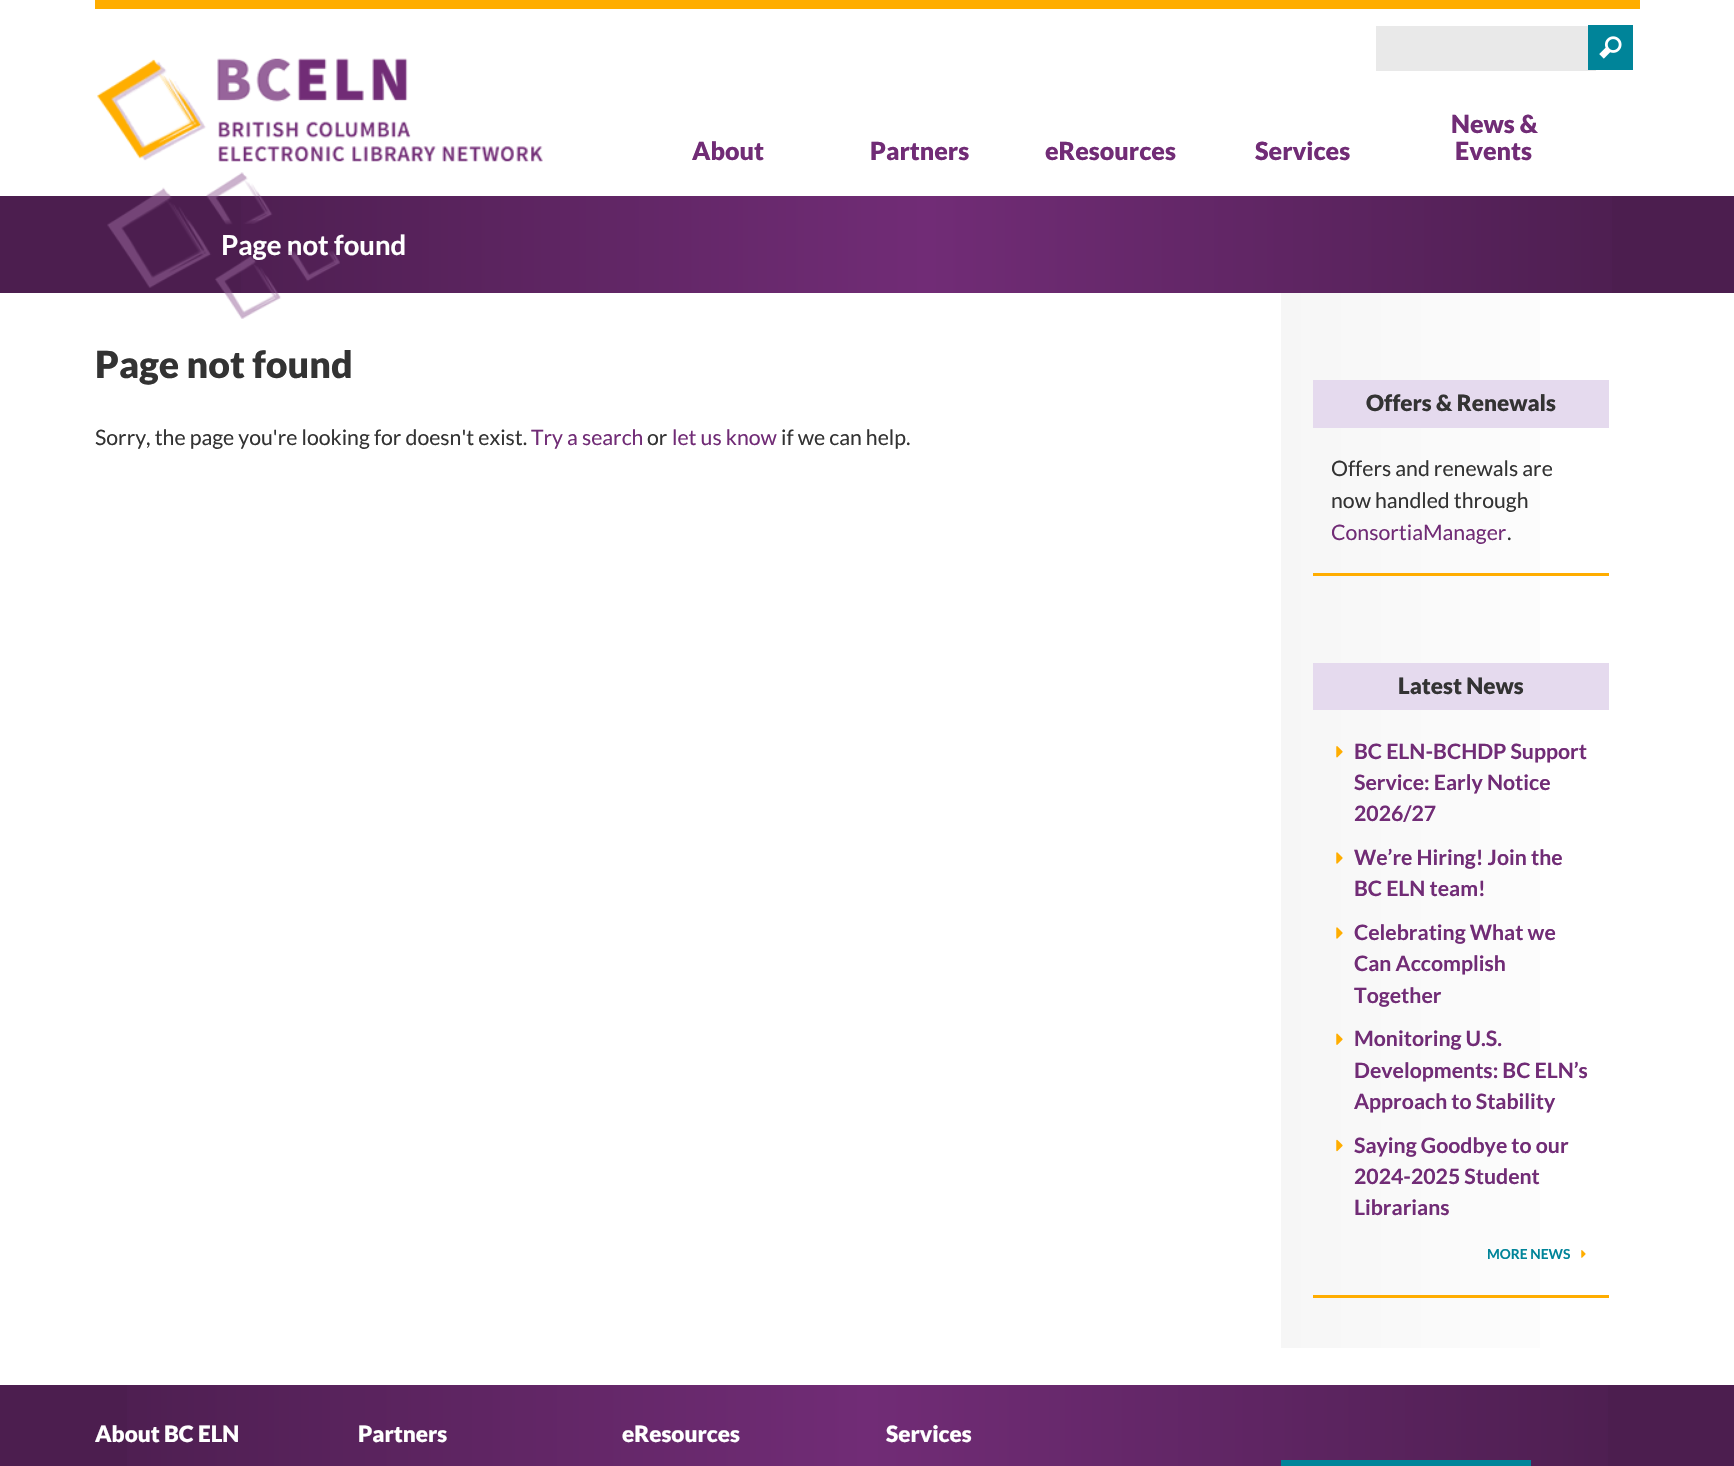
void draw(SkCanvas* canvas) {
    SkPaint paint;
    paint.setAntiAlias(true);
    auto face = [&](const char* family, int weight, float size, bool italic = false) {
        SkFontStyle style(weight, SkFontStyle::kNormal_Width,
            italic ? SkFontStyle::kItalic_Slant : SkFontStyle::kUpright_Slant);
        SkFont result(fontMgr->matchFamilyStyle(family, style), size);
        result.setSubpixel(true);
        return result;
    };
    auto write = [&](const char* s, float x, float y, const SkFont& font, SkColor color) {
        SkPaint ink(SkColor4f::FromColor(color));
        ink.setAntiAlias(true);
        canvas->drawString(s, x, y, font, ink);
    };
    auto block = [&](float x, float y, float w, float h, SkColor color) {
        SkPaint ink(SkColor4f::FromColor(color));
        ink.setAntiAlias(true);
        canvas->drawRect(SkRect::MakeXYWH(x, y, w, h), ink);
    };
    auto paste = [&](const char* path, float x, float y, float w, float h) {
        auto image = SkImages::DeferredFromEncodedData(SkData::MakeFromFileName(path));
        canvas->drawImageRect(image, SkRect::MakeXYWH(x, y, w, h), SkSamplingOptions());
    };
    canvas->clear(SK_ColorWHITE);
    block(95, 0, 1545, 9, SkColorSetRGB(255, 173, 0));
    paste("pic1.png", 97, 58, 446, 104);
    block(1376, 26, 220, 45, SkColorSetRGB(233, 233, 233));
    block(1588, 25, 45, 45, SkColorSetRGB(0, 132, 153));
    paste("pic2.png", 1599, 36, 23, 23);
    auto kFont1 = face("Lato", 900, 25);
    write("About", 692, 160, kFont1, SkColorSetRGB(113, 44, 118));
    write("Partners", 870, 160, kFont1, SkColorSetRGB(113, 44, 118));
    write("eResources", 1045, 160, kFont1, SkColorSetRGB(113, 44, 118));
    write("Services", 1255, 160, kFont1, SkColorSetRGB(113, 44, 118));
    write("News &", 1451, 133, kFont1, SkColorSetRGB(113, 44, 118));
    write("Events", 1455, 160, kFont1, SkColorSetRGB(113, 44, 118));
    block(0, 196, 1734, 97, SkColorSetRGB(76, 30, 79));
    {
        const SkColor colors[] = {SkColorSetRGB(76, 30, 79), SkColorSetRGB(113, 44, 118), SkColorSetRGB(76, 30, 79)};
        const float stops[] = {0, 0.5f, 1};
        const SkPoint ends[] = {{194, 244}, {1659, 244}};
        paint.setShader(SkGradientShader::MakeLinear(ends, colors, stops, 3, SkTileMode::kClamp));
        paint.setAlpha(255);
    }
    canvas->drawRect(SkRect::MakeXYWH(241, 196, 1371, 97), paint);
    auto kFont2 = face("Lato", 700, 27.5f);
    write("Page not found", 221, 255, kFont2, SK_ColorWHITE);
    paste("pic3.png", 107, 172, 233, 147);
    auto kFont3 = face("Lato", 900, 37.5f);
    write("Page not found", 95, 378, kFont3, SkColorSetRGB(51, 51, 51));
    auto kFont4 = face("Lato", 400, 21.25f);
    write("Sorry, the page you're looking for doesn't exist.", 95, 445, kFont4, SkColorSetRGB(51, 51, 51));
    write("Try a search", 531, 445, kFont4, SkColorSetRGB(113, 44, 118));
    write("or", 647, 445, kFont4, SkColorSetRGB(51, 51, 51));
    write("let us know", 672, 445, kFont4, SkColorSetRGB(113, 44, 118));
    write("if we can help.", 781, 445, kFont4, SkColorSetRGB(51, 51, 51));
    {
        const SkColor colors[] = {SkColorSetRGB(246, 246, 246), SK_ColorWHITE};
        const float stops[] = {0, 1};
        const SkPoint ends[] = {{1281, 820}, {1640, 820}};
        paint.setShader(SkGradientShader::MakeLinear(ends, colors, stops, 2, SkTileMode::kClamp));
        paint.setAlpha(255);
    }
    canvas->drawRect(SkRect::MakeXYWH(1281, 293, 259, 1055), paint);
    block(1313, 380, 296, 48, SkColorSetRGB(229, 218, 238));
    auto kFont5 = face("Lato", 900, 22.5f);
    write("Offers & Renewals", 1366, 411, kFont5, SkColorSetRGB(51, 51, 51));
    block(1313, 573, 296, 3, SkColorSetRGB(255, 173, 0));
    write("Offers and renewals are", 1331, 476, kFont4, SkColorSetRGB(51, 51, 51));
    write("now handled through", 1331, 508, kFont4, SkColorSetRGB(51, 51, 51));
    write("ConsortiaManager", 1331, 540, kFont4, SkColorSetRGB(113, 44, 118));
    write(".", 1507, 540, kFont4, SkColorSetRGB(51, 51, 51));
    block(1313, 663, 296, 47, SkColorSetRGB(229, 218, 238));
    write("Latest News", 1398, 694, kFont5, SkColorSetRGB(51, 51, 51));
    block(1313, 1295, 296, 3, SkColorSetRGB(255, 173, 0));
    paste("pic4.png", 1336, 746, 7, 12);
    auto kFont6 = face("Lato", 700, 21.25f);
    write("BC ELN-BCHDP Support", 1354, 759, kFont6, SkColorSetRGB(113, 44, 118));
    write("Service: Early Notice", 1354, 790, kFont6, SkColorSetRGB(113, 44, 118));
    write("2026/27", 1354, 821, kFont6, SkColorSetRGB(113, 44, 118));
    paste("pic5.png", 1336, 852, 7, 12);
    write("We’re Hiring! Join the", 1354, 865, kFont6, SkColorSetRGB(113, 44, 118));
    write("BC ELN team!", 1354, 896, kFont6, SkColorSetRGB(113, 44, 118));
    paste("pic5.png", 1336, 927, 7, 12);
    write("Celebrating What we", 1354, 940, kFont6, SkColorSetRGB(113, 44, 118));
    write("Can Accomplish", 1354, 971, kFont6, SkColorSetRGB(113, 44, 118));
    write("Together", 1354, 1003, kFont6, SkColorSetRGB(113, 44, 118));
    paste("pic6.png", 1336, 1033, 7, 12);
    write("Monitoring U.S.", 1354, 1046, kFont6, SkColorSetRGB(113, 44, 118));
    write("Developments: BC ELN’s", 1354, 1078, kFont6, SkColorSetRGB(113, 44, 118));
    write("Approach to Stability", 1354, 1109, kFont6, SkColorSetRGB(113, 44, 118));
    paste("pic7.png", 1336, 1139, 7, 13);
    write("Saying Goodbye to our", 1354, 1153, kFont6, SkColorSetRGB(113, 44, 118));
    write("2024-2025 Student", 1354, 1184, kFont6, SkColorSetRGB(113, 44, 118));
    write("Librarians", 1354, 1215, kFont6, SkColorSetRGB(113, 44, 118));
    auto kFont7 = face("Lato", 700, 13.75f);
    write("MORE NEWS", 1487, 1259, kFont7, SkColorSetRGB(0, 132, 153));
    paste("pic8.png", 1581, 1250, 5, 8);
    block(0, 1385, 1734, 81, SkColorSetRGB(76, 30, 79));
    {
        const SkColor colors[] = {SkColorSetRGB(76, 30, 79), SkColorSetRGB(113, 44, 118), SkColorSetRGB(76, 30, 79)};
        const float stops[] = {0, 0.5f, 1};
        const SkPoint ends[] = {{76, 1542}, {1659, 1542}};
        paint.setShader(SkGradientShader::MakeLinear(ends, colors, stops, 3, SkTileMode::kClamp));
        paint.setAlpha(255);
    }
    canvas->drawRect(SkRect::MakeXYWH(127, 1385, 1481, 81), paint);
    write("About BC ELN", 95, 1442, kFont5, SK_ColorWHITE);
    write("Partners", 358, 1442, kFont5, SK_ColorWHITE);
    write("eResources", 622, 1442, kFont5, SK_ColorWHITE);
    write("Services", 886, 1442, kFont5, SK_ColorWHITE);
    block(1281, 1460, 250, 6, SkColorSetRGB(0, 132, 153));
}
